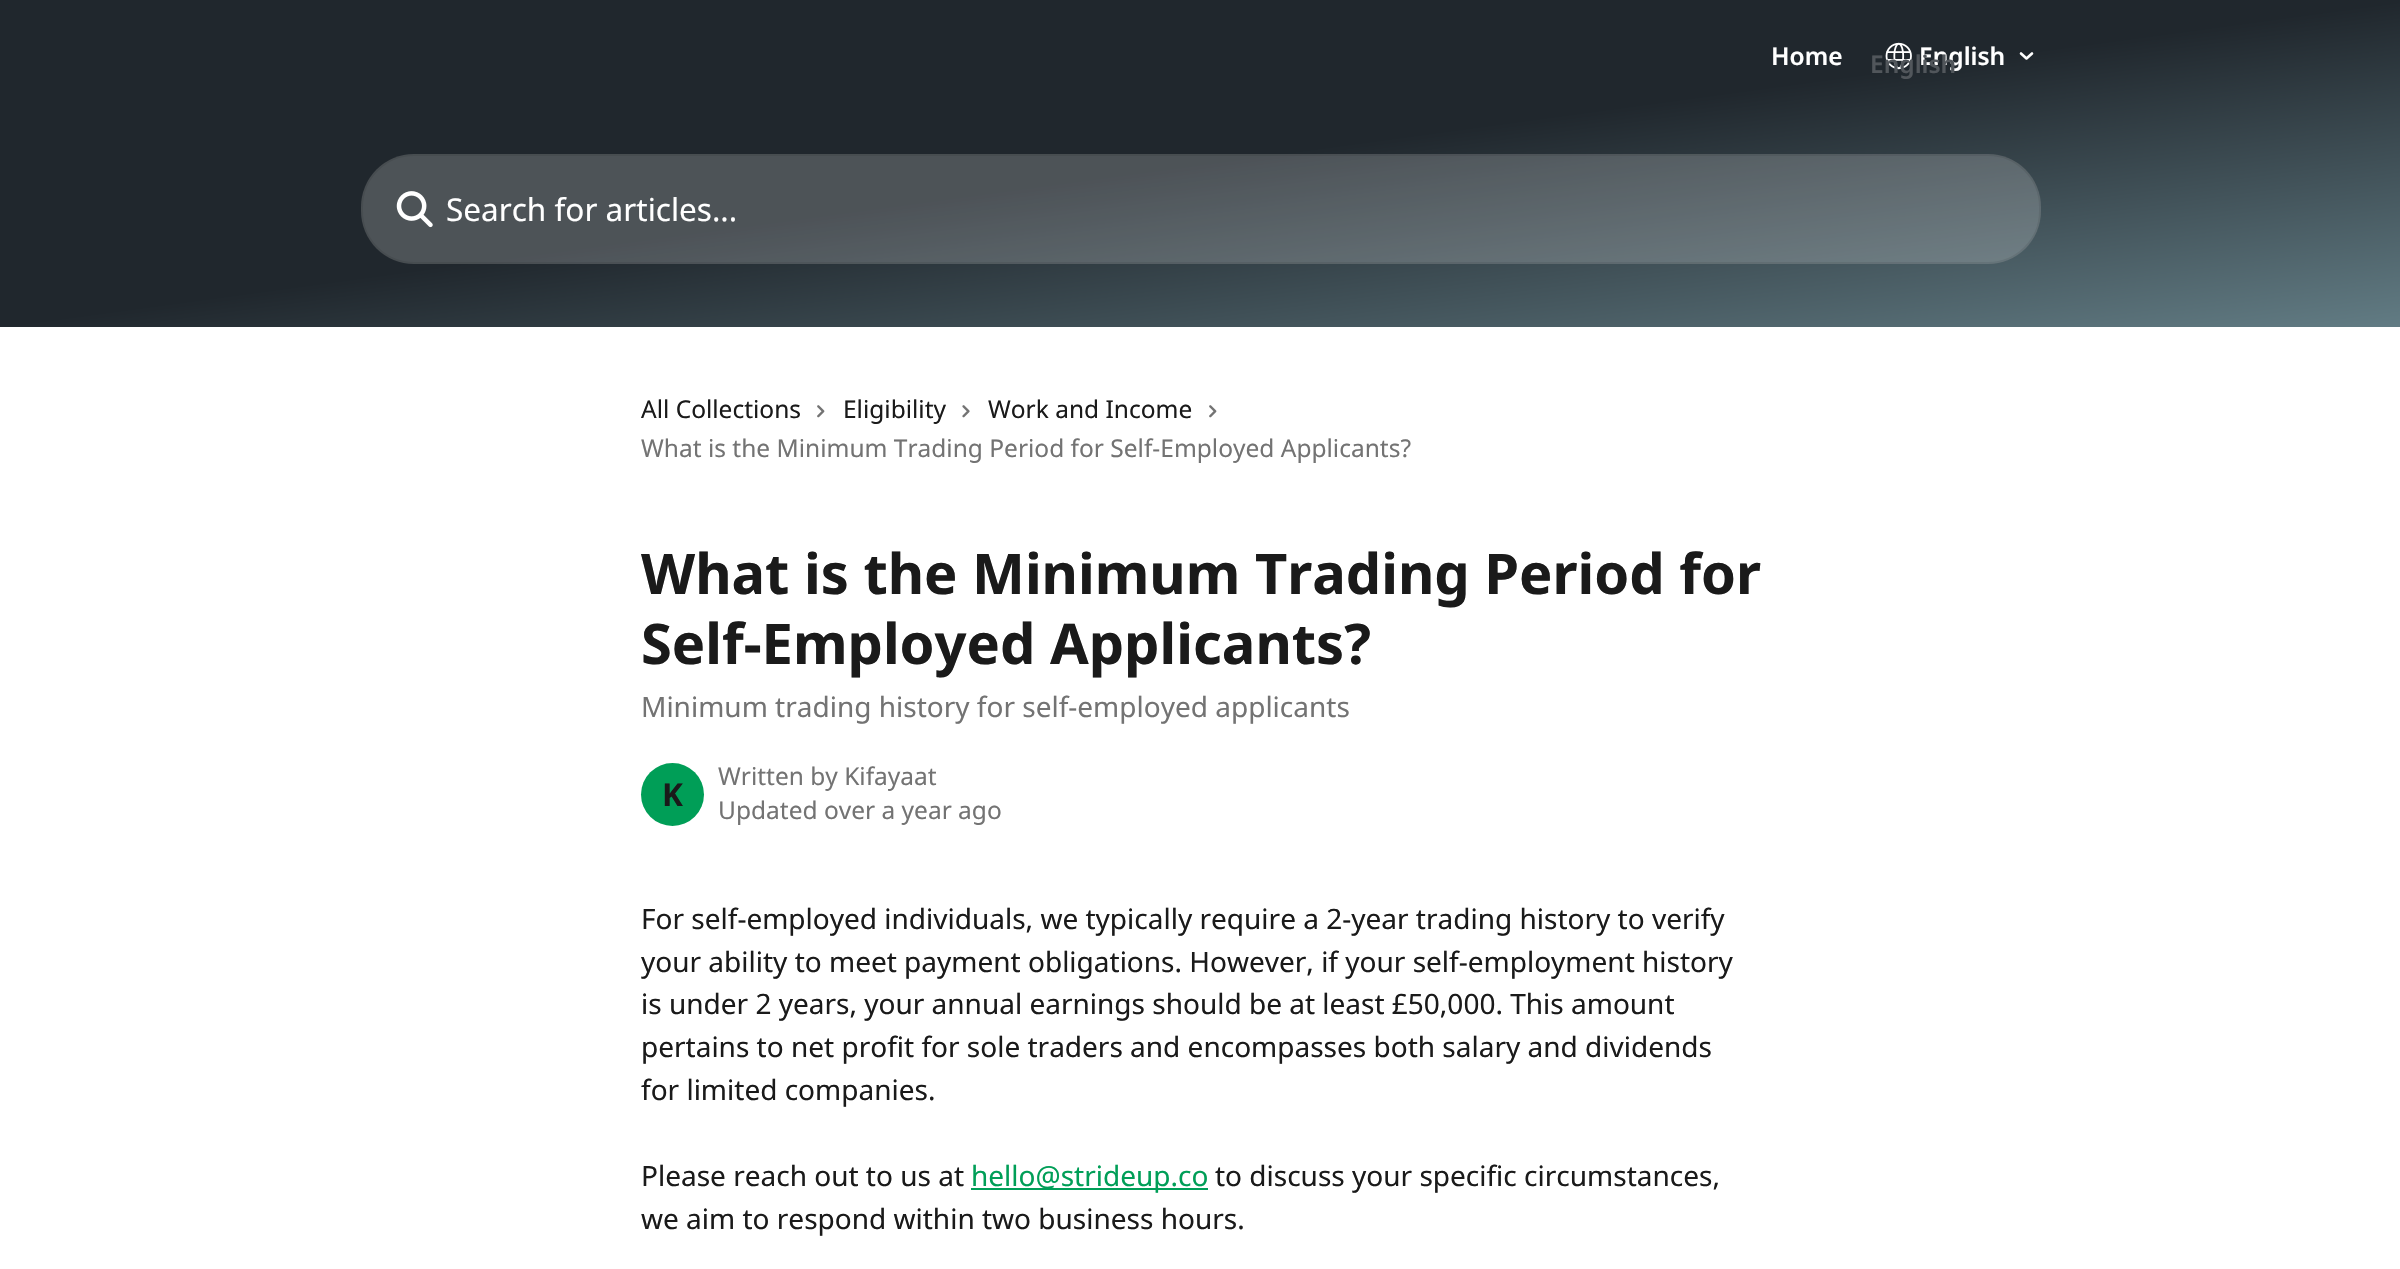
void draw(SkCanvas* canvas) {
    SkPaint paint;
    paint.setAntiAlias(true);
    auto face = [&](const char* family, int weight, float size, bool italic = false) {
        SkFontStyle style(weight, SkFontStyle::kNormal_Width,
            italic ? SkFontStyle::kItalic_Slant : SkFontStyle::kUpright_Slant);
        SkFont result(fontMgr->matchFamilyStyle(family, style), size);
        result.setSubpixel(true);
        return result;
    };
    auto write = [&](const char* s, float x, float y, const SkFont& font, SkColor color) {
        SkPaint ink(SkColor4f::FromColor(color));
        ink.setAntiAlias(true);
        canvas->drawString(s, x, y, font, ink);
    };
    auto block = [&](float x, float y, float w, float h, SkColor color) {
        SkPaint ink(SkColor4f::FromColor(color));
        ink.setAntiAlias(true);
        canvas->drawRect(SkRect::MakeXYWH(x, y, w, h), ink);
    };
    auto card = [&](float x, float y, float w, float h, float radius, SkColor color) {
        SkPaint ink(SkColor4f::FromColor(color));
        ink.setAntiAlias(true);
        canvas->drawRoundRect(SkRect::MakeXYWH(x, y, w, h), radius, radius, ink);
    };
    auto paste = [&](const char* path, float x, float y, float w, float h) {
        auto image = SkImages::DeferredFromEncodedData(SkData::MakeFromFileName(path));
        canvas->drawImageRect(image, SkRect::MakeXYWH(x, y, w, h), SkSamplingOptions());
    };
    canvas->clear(SK_ColorWHITE);
    {
        const SkColor colors[] = {SkColorSetRGB(32, 39, 45), SkColorSetRGB(32, 39, 45), SkColorSetRGB(98, 124, 132)};
        const float stops[] = {0, 0.5f, 1};
        const SkPoint ends[] = {{1157, -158}, {1244, 485}};
        paint.setShader(SkGradientShader::MakeLinear(ends, colors, stops, 3, SkTileMode::kClamp));
        paint.setAlpha(255);
    }
    canvas->drawRect(SkRect::MakeXYWH(0, 0, 2400, 327), paint);
    auto kFont1 = face("Noto Sans", 600, 24.5f);
    write("Home", 1771, 65, kFont1, SK_ColorWHITE);
    paste("pic1.png", 1885, 42, 27, 28);
    write("English", 1919, 65, kFont1, SK_ColorWHITE);
    write("English", 1870, 73, kFont1, SkColorSetRGB(81, 86, 91));
    paint.setStyle(SkPaint::kStroke_Style);
    paint.setStrokeWidth(2.6f);
    paint.setStrokeCap(SkPaint::kRound_Cap);
    paint.setStrokeJoin(SkPaint::kRound_Join);
    paint.setShader(nullptr);
    paint.setColor(SK_ColorWHITE);
    canvas->drawPath(SkPathBuilder().moveTo(2021, 53.5f).lineTo(2026.5f, 58.5f).lineTo(2032, 53.5f).detach(), paint);
    card(361, 154, 1680, 110, 53, SkColorSetARGB(51, 255, 255, 255));
    paint.setStrokeWidth(2);
    paint.setStrokeCap(SkPaint::kButt_Cap);
    paint.setStrokeJoin(SkPaint::kMiter_Join);
    paint.setColor(SkColorSetARGB(20, 0, 0, 0));
    canvas->drawRoundRect(SkRect::MakeXYWH(362, 155, 1678, 108), 52, 52, paint);
    paste("pic2.png", 396, 191, 37, 37);
    auto kFont2 = face("Noto Sans", 400, 31.5f);
    write("Search for articles...", 446, 221, kFont2, SK_ColorWHITE);
    auto kFont3 = face("Noto Sans", 400, 24.5f);
    write("All Collections", 641, 418, kFont3, SkColorSetRGB(26, 26, 26));
    paste("pic3.png", 817, 405, 8, 13);
    write("Eligibility", 843, 418, kFont3, SkColorSetRGB(26, 26, 26));
    paste("pic4.png", 962, 405, 8, 13);
    write("Work and Income", 988, 418, kFont3, SkColorSetRGB(26, 26, 26));
    paste("pic3.png", 1209, 405, 8, 13);
    write("What is the Minimum Trading Period for Self-Employed Applicants?", 641, 457, kFont3, SkColorSetRGB(115, 115, 115));
    auto kFont4 = face("Noto Sans", 700, 56);
    write("What is the Minimum Trading Period for", 641, 594, kFont4, SkColorSetRGB(26, 26, 26));
    write("Self-Employed Applicants?", 641, 664, kFont4, SkColorSetRGB(26, 26, 26));
    auto kFont5 = face("Noto Sans", 400, 28);
    write("Minimum trading history for self-employed applicants", 641, 717, kFont5, SkColorSetRGB(115, 115, 115));
    paint.setStyle(SkPaint::kFill_Style);
    paint.setColor(SkColorSetRGB(0, 158, 87));
    canvas->drawCircle(672.5f, 794.5f, 31.5f, paint);
    auto kFont6 = face("Noto Sans", 700, 31.5f);
    write("K", 662, 806, kFont6, SkColorSetRGB(26, 26, 26));
    write("Written by Kifayaat", 718, 785, kFont3, SkColorSetRGB(115, 115, 115));
    write("Updated over a year ago", 718, 819, kFont3, SkColorSetRGB(115, 115, 115));
    write("For self-employed individuals, we typically require a 2-year trading history to verify", 641, 929, kFont5, SkColorSetRGB(26, 26, 26));
    write("your ability to meet payment obligations. However, if your self-employment history", 641, 972, kFont5, SkColorSetRGB(26, 26, 26));
    write("is under 2 years, your annual earnings should be at least £50,000. This amount", 641, 1014, kFont5, SkColorSetRGB(26, 26, 26));
    write("pertains to net profit for sole traders and encompasses both salary and dividends", 641, 1057, kFont5, SkColorSetRGB(26, 26, 26));
    write("for limited companies.", 641, 1100, kFont5, SkColorSetRGB(26, 26, 26));
    write("Please reach out to us at", 641, 1186, kFont5, SkColorSetRGB(26, 26, 26));
    block(971, 1188, 237, 2, SkColorSetRGB(0, 158, 87));
    write("hello@strideup.co", 971, 1186, kFont5, SkColorSetRGB(0, 158, 87));
    write("to discuss your specific circumstances,", 1215, 1186, kFont5, SkColorSetRGB(26, 26, 26));
    write("we aim to respond within two business hours.", 641, 1229, kFont5, SkColorSetRGB(26, 26, 26));
}
